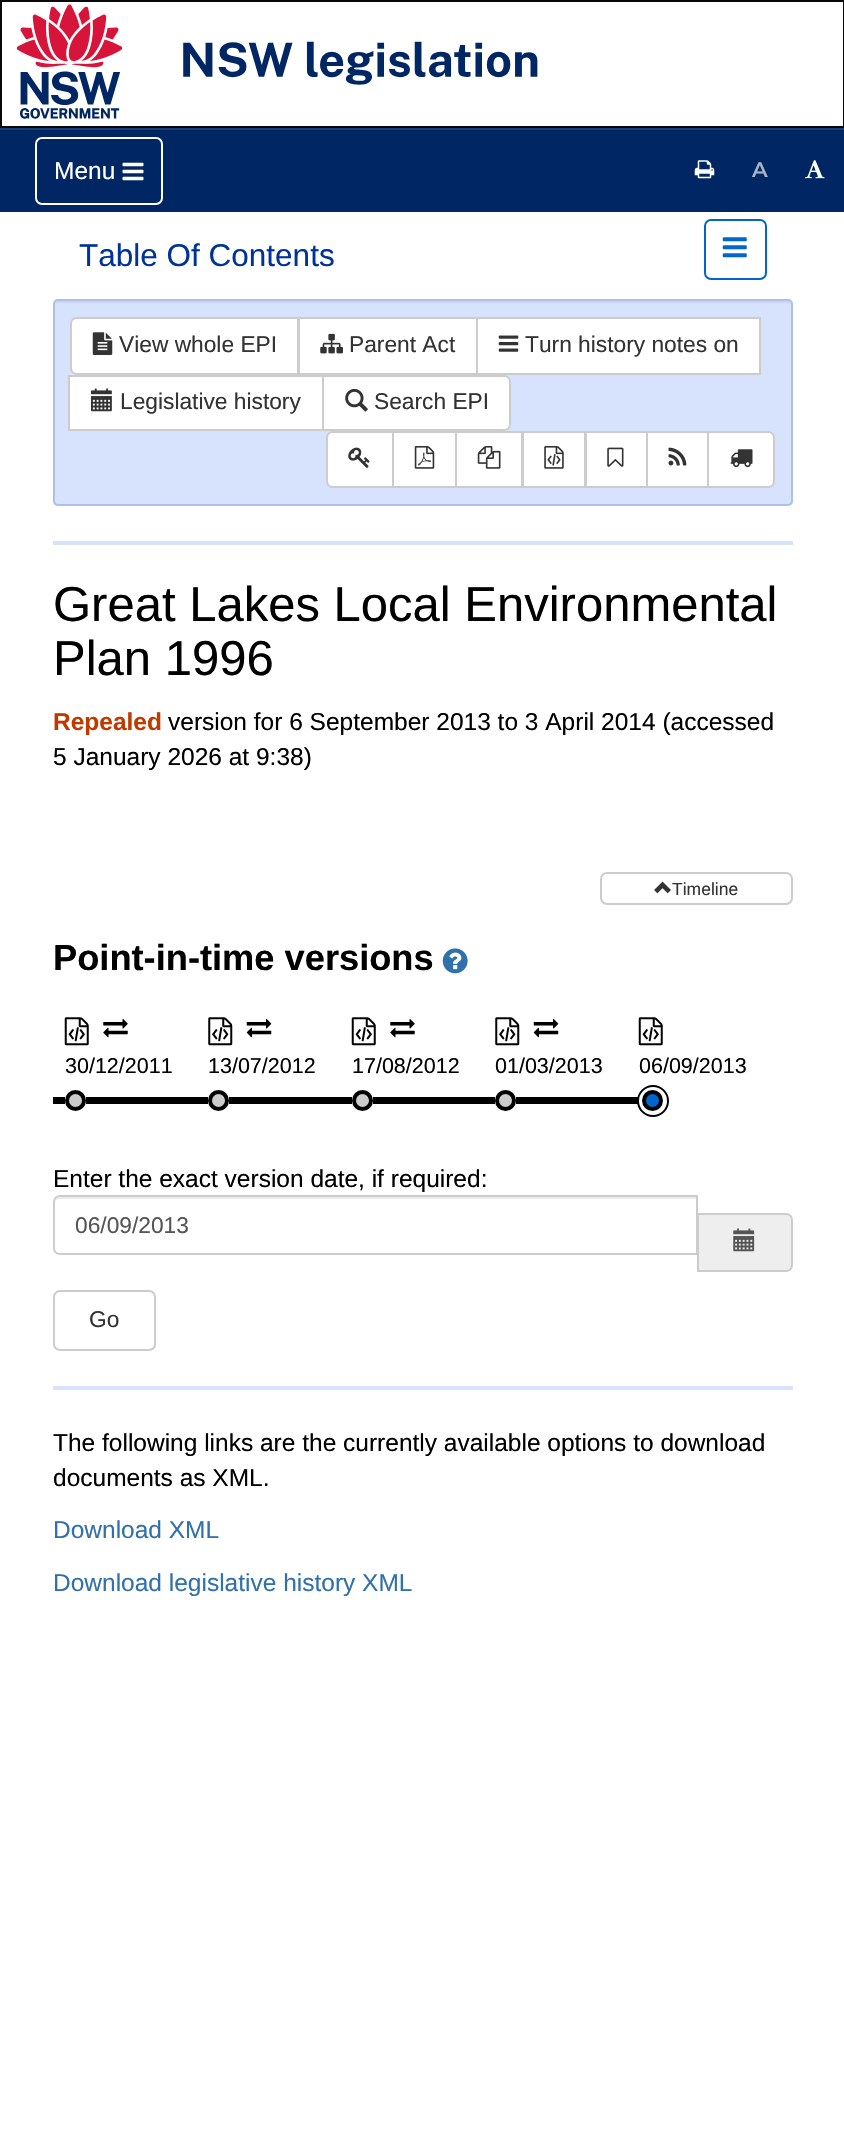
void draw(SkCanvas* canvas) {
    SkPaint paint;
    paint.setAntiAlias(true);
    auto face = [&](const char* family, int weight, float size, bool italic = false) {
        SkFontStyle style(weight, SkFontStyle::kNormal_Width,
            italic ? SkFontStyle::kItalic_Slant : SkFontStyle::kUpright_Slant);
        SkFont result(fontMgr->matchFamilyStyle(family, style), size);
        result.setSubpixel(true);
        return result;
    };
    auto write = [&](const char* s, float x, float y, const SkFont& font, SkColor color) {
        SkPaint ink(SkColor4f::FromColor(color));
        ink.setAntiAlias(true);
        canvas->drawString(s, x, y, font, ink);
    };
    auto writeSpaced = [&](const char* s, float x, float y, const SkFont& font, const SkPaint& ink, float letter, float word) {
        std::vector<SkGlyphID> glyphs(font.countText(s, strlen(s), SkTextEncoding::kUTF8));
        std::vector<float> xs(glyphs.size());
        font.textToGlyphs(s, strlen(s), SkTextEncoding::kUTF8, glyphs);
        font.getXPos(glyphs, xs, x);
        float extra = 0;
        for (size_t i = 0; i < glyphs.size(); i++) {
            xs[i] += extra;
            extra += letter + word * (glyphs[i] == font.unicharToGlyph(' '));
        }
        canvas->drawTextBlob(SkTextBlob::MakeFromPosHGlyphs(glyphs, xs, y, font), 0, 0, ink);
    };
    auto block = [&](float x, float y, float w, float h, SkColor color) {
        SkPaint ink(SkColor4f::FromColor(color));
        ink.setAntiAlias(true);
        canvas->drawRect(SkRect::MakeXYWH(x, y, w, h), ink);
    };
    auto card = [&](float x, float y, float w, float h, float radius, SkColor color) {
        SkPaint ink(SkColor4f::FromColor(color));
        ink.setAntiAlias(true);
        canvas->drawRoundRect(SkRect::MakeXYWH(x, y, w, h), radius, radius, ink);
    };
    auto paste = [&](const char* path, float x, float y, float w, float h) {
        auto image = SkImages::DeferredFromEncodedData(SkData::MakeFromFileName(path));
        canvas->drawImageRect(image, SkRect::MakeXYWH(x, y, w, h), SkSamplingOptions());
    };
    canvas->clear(SK_ColorWHITE);
    paint.setStyle(SkPaint::kStroke_Style);
    paint.setStrokeWidth(2);
    paint.setColor(SkColorSetRGB(8, 8, 8));
    canvas->drawRect(SkRect::MakeXYWH(1, 1, 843, 126), paint);
    paste("pic1.png", 16, 4, 522, 115);
    block(0, 130, 844, 82, SkColorSetRGB(0, 38, 100));
    block(0, 128, 844, 2, SkColorSetRGB(26, 60, 116));
    paint.setColor(SK_ColorWHITE);
    canvas->drawRoundRect(SkRect::MakeXYWH(36, 138, 126, 66), 6, 6, paint);
    auto kFont1 = face("Liberation Sans", 400, 24.5f);
    write("Menu", 54, 179, kFont1, SK_ColorWHITE);
    paste("pic2.png", 122, 162, 22, 19);
    paste("pic3.png", 694, 160, 21, 19);
    auto kFont2 = face("Montserrat", 600, 21);
    paint.setStyle(SkPaint::kFill_Style);
    paint.setColor(SkColorSetRGB(166, 179, 201));
    writeSpaced("A", 752, 177, kFont2, paint, 1, 0);
    paste("pic4.png", 805, 160, 20, 19);
    auto kFont3 = face("Liberation Sans", 400, 31.5f);
    write("Table Of Contents", 79, 266, kFont3, SkColorSetRGB(0, 51, 153));
    paint.setStyle(SkPaint::kStroke_Style);
    paint.setColor(SkColorSetRGB(0, 102, 204));
    canvas->drawRoundRect(SkRect::MakeXYWH(705, 220, 61, 59), 6, 6, paint);
    paste("pic5.png", 722, 237, 25, 21);
    card(53, 299, 740, 207, 5, SkColorSetRGB(215, 226, 252));
    paint.setStyle(SkPaint::kFill_Style);
    paint.setColor(SkColorSetRGB(204, 215, 239));
    canvas->drawPath(SkPathBuilder().moveTo(58, 303).lineTo(788, 303).cubicTo(789, 303, 791, 304, 791, 306).cubicTo(791, 303, 790, 301, 787, 301).lineTo(58, 301).lineTo(55, 302).lineTo(54, 303).lineTo(54, 306).cubicTo(54, 304, 56, 303, 58, 303).close().detach(), paint);
    paint.setStyle(SkPaint::kStroke_Style);
    paint.setColor(SkColorSetRGB(174, 191, 233));
    canvas->drawRoundRect(SkRect::MakeXYWH(54, 300, 738, 205), 4, 4, paint);
    paint.setStyle(SkPaint::kFill_Style);
    paint.setColor(SK_ColorWHITE);
    canvas->drawPath(SkPathBuilder().moveTo(77, 318).lineTo(298, 318).lineTo(298, 374).lineTo(77, 374).cubicTo(73.5f, 374, 71, 371.5f, 71, 368).lineTo(71, 324).cubicTo(71, 320.5f, 73.5f, 318, 77, 318).close().detach(), paint);
    paint.setStyle(SkPaint::kStroke_Style);
    paint.setColor(SkColorSetRGB(204, 204, 204));
    canvas->drawPath(SkPathBuilder().moveTo(77, 318).lineTo(298, 318).lineTo(298, 374).lineTo(77, 374).cubicTo(73.5f, 374, 71, 371.5f, 71, 368).lineTo(71, 324).cubicTo(71, 320.5f, 73.5f, 318, 77, 318).close().detach(), paint);
    paste("pic6.png", 92, 332, 21, 23);
    auto kFont4 = face("Liberation Sans", 400, 22.75f);
    write("View whole EPI", 119, 352, kFont4, SkColorSetRGB(51, 51, 51));
    paint.setStyle(SkPaint::kFill_Style);
    paint.setColor(SK_ColorWHITE);
    canvas->drawRect(SkRect::MakeXYWH(299, 318, 178, 56), paint);
    paint.setStyle(SkPaint::kStroke_Style);
    paint.setColor(SkColorSetRGB(204, 204, 204));
    canvas->drawRect(SkRect::MakeXYWH(299, 318, 178, 56), paint);
    paste("pic7.png", 320, 333, 23, 21);
    write("Parent Act", 349, 352, kFont4, SkColorSetRGB(51, 51, 51));
    paint.setStyle(SkPaint::kFill_Style);
    paint.setColor(SK_ColorWHITE);
    canvas->drawRect(SkRect::MakeXYWH(477, 318, 283, 56), paint);
    paint.setStyle(SkPaint::kStroke_Style);
    paint.setColor(SkColorSetRGB(204, 204, 204));
    canvas->drawRect(SkRect::MakeXYWH(477, 318, 283, 56), paint);
    paste("pic8.png", 498, 335, 21, 17);
    write("Turn history notes on", 525, 352, kFont4, SkColorSetRGB(51, 51, 51));
    paint.setStyle(SkPaint::kFill_Style);
    paint.setColor(SK_ColorWHITE);
    canvas->drawRect(SkRect::MakeXYWH(69, 376, 254, 54), paint);
    paint.setStyle(SkPaint::kStroke_Style);
    paint.setColor(SkColorSetRGB(204, 204, 204));
    canvas->drawRect(SkRect::MakeXYWH(69, 376, 254, 54), paint);
    paste("pic9.png", 91, 388, 21, 24);
    write("Legislative history", 120, 409, kFont4, SkColorSetRGB(51, 51, 51));
    paint.setStyle(SkPaint::kFill_Style);
    paint.setColor(SK_ColorWHITE);
    canvas->drawPath(SkPathBuilder().moveTo(323, 376).lineTo(504, 376).cubicTo(507.5f, 376, 510, 378.5f, 510, 382).lineTo(510, 424).cubicTo(510, 427.5f, 507.5f, 430, 504, 430).lineTo(323, 430).close().detach(), paint);
    paint.setStyle(SkPaint::kStroke_Style);
    paint.setColor(SkColorSetRGB(204, 204, 204));
    canvas->drawPath(SkPathBuilder().moveTo(323, 376).lineTo(504, 376).cubicTo(507.5f, 376, 510, 378.5f, 510, 382).lineTo(510, 424).cubicTo(510, 427.5f, 507.5f, 430, 504, 430).lineTo(323, 430).close().detach(), paint);
    paste("pic10.png", 345, 388, 23, 24);
    write("Search EPI", 374, 409, kFont4, SkColorSetRGB(51, 51, 51));
    paint.setStyle(SkPaint::kFill_Style);
    paint.setColor(SK_ColorWHITE);
    canvas->drawPath(SkPathBuilder().moveTo(333, 432).lineTo(393, 432).lineTo(393, 487).lineTo(333, 487).cubicTo(329.5f, 487, 327, 484.5f, 327, 481).lineTo(327, 438).cubicTo(327, 434.5f, 329.5f, 432, 333, 432).close().detach(), paint);
    paint.setStyle(SkPaint::kStroke_Style);
    paint.setColor(SkColorSetRGB(204, 204, 204));
    canvas->drawPath(SkPathBuilder().moveTo(333, 432).lineTo(393, 432).lineTo(393, 487).lineTo(333, 487).cubicTo(329.5f, 487, 327, 484.5f, 327, 481).lineTo(327, 438).cubicTo(327, 434.5f, 329.5f, 432, 333, 432).close().detach(), paint);
    paste("pic11.png", 348, 447, 22, 21);
    paint.setStyle(SkPaint::kFill_Style);
    paint.setColor(SK_ColorWHITE);
    canvas->drawRect(SkRect::MakeXYWH(393, 432, 63, 55), paint);
    paint.setStyle(SkPaint::kStroke_Style);
    paint.setColor(SkColorSetRGB(204, 204, 204));
    canvas->drawRect(SkRect::MakeXYWH(393, 432, 63, 55), paint);
    paste("pic12.png", 414, 446, 21, 23);
    paint.setStyle(SkPaint::kFill_Style);
    paint.setColor(SK_ColorWHITE);
    canvas->drawRect(SkRect::MakeXYWH(456, 432, 66, 55), paint);
    paint.setStyle(SkPaint::kStroke_Style);
    paint.setColor(SkColorSetRGB(204, 204, 204));
    canvas->drawRect(SkRect::MakeXYWH(456, 432, 66, 55), paint);
    paste("pic13.png", 477, 446, 24, 23);
    paint.setStyle(SkPaint::kFill_Style);
    paint.setColor(SK_ColorWHITE);
    canvas->drawRect(SkRect::MakeXYWH(523, 432, 62, 55), paint);
    paint.setStyle(SkPaint::kStroke_Style);
    paint.setColor(SkColorSetRGB(204, 204, 204));
    canvas->drawRect(SkRect::MakeXYWH(523, 432, 62, 55), paint);
    paste("pic14.png", 544, 446, 20, 23);
    paint.setStyle(SkPaint::kFill_Style);
    paint.setColor(SK_ColorWHITE);
    canvas->drawRect(SkRect::MakeXYWH(586, 432, 61, 55), paint);
    paint.setStyle(SkPaint::kStroke_Style);
    paint.setColor(SkColorSetRGB(204, 204, 204));
    canvas->drawRect(SkRect::MakeXYWH(586, 432, 61, 55), paint);
    paste("pic15.png", 607, 447, 17, 20);
    paint.setStyle(SkPaint::kFill_Style);
    paint.setColor(SK_ColorWHITE);
    canvas->drawRect(SkRect::MakeXYWH(647, 432, 61, 55), paint);
    paint.setStyle(SkPaint::kStroke_Style);
    paint.setColor(SkColorSetRGB(204, 204, 204));
    canvas->drawRect(SkRect::MakeXYWH(647, 432, 61, 55), paint);
    paste("pic16.png", 668, 447, 19, 19);
    paint.setStyle(SkPaint::kFill_Style);
    paint.setColor(SK_ColorWHITE);
    canvas->drawPath(SkPathBuilder().moveTo(708, 432).lineTo(768, 432).cubicTo(771.5f, 432, 774, 434.5f, 774, 438).lineTo(774, 481).cubicTo(774, 484.5f, 771.5f, 487, 768, 487).lineTo(708, 487).close().detach(), paint);
    paint.setStyle(SkPaint::kStroke_Style);
    paint.setColor(SkColorSetRGB(204, 204, 204));
    canvas->drawPath(SkPathBuilder().moveTo(708, 432).lineTo(768, 432).cubicTo(771.5f, 432, 774, 434.5f, 774, 438).lineTo(774, 481).cubicTo(774, 484.5f, 771.5f, 487, 768, 487).lineTo(708, 487).close().detach(), paint);
    paste("pic17.png", 730, 449, 23, 19);
    block(53, 541, 740, 4, SkColorSetRGB(215, 226, 252));
    auto kFont5 = face("Liberation Sans", 400, 49);
    write("Great Lakes Local Environmental", 53, 621, kFont5, SK_ColorBLACK);
    write("Plan 1996", 53, 675, kFont5, SK_ColorBLACK);
    auto kFont6 = face("Liberation Sans", 700, 24.5f);
    write("Repealed", 53, 730, kFont6, SkColorSetRGB(192, 58, 0));
    write("version for 6 September 2013 to 3 April 2014 (accessed", 168, 730, kFont1, SK_ColorBLACK);
    write("5 January 2026 at 9:38)", 53, 765, kFont1, SK_ColorBLACK);
    canvas->drawRoundRect(SkRect::MakeXYWH(601, 873, 191, 31), 6, 6, paint);
    paste("pic18.png", 654, 881, 17, 13);
    auto kFont7 = face("Liberation Sans", 400, 17.5f);
    write("Timeline", 672, 895, kFont7, SkColorSetRGB(51, 51, 51));
    auto kFont8 = face("Liberation Sans", 700, 36.25f);
    write("Point-in-time versions", 53, 970, kFont8, SK_ColorBLACK);
    paste("pic19.png", 442, 948, 26, 26);
    paste("pic20.png", 64, 1017, 25, 29);
    paste("pic21.png", 103, 1019, 25, 19);
    auto kFont9 = face("Liberation Sans", 400, 21.5f);
    write("30/12/2011", 65, 1073, kFont9, SK_ColorBLACK);
    paint.setStyle(SkPaint::kFill_Style);
    canvas->drawCircle(75.5f, 1100.5f, 8.5f, paint);
    paint.setStyle(SkPaint::kStroke_Style);
    paint.setStrokeWidth(4);
    paint.setColor(SK_ColorBLACK);
    canvas->drawCircle(75.5f, 1100.5f, 8.5f, paint);
    block(86, 1097, 122, 7, SK_ColorBLACK);
    paste("pic22.png", 208, 1017, 25, 29);
    paste("pic23.png", 246, 1019, 26, 19);
    write("13/07/2012", 208, 1073, kFont9, SK_ColorBLACK);
    paint.setStyle(SkPaint::kFill_Style);
    paint.setColor(SkColorSetRGB(204, 204, 204));
    canvas->drawCircle(218.5f, 1100.5f, 8.5f, paint);
    paint.setStyle(SkPaint::kStroke_Style);
    paint.setColor(SK_ColorBLACK);
    canvas->drawCircle(218.5f, 1100.5f, 8.5f, paint);
    block(229, 1097, 123, 7, SK_ColorBLACK);
    paste("pic20.png", 351, 1017, 25, 29);
    paste("pic21.png", 390, 1019, 25, 19);
    write("17/08/2012", 352, 1073, kFont9, SK_ColorBLACK);
    paint.setStyle(SkPaint::kFill_Style);
    paint.setColor(SkColorSetRGB(204, 204, 204));
    canvas->drawCircle(362.5f, 1100.5f, 8.5f, paint);
    paint.setStyle(SkPaint::kStroke_Style);
    paint.setColor(SK_ColorBLACK);
    canvas->drawCircle(362.5f, 1100.5f, 8.5f, paint);
    block(373, 1097, 122, 7, SK_ColorBLACK);
    paste("pic22.png", 495, 1017, 25, 29);
    paste("pic23.png", 533, 1019, 26, 19);
    write("01/03/2013", 495, 1073, kFont9, SK_ColorBLACK);
    paint.setStyle(SkPaint::kFill_Style);
    paint.setColor(SkColorSetRGB(204, 204, 204));
    canvas->drawCircle(505.5f, 1100.5f, 8.5f, paint);
    paint.setStyle(SkPaint::kStroke_Style);
    paint.setColor(SK_ColorBLACK);
    canvas->drawCircle(505.5f, 1100.5f, 8.5f, paint);
    paint.setStrokeWidth(2);
    canvas->drawCircle(653, 1101, 15, paint);
    block(516, 1097, 123, 7, SK_ColorBLACK);
    paste("pic20.png", 638, 1017, 25, 29);
    write("06/09/2013", 639, 1073, kFont9, SK_ColorBLACK);
    paint.setStyle(SkPaint::kFill_Style);
    paint.setColor(SkColorSetRGB(0, 102, 204));
    canvas->drawCircle(652.5f, 1100.5f, 8.5f, paint);
    paint.setStyle(SkPaint::kStroke_Style);
    paint.setStrokeWidth(4);
    paint.setColor(SK_ColorBLACK);
    canvas->drawCircle(652.5f, 1100.5f, 8.5f, paint);
    block(53, 1097, 12, 7, SK_ColorBLACK);
    write("Enter the exact version date, if required:", 53, 1187, kFont1, SK_ColorBLACK);
    paint.setStyle(SkPaint::kFill_Style);
    paint.setColor(SkColorSetRGB(238, 238, 238));
    canvas->drawPath(SkPathBuilder().moveTo(698, 1214).lineTo(786, 1214).cubicTo(789.5f, 1214, 792, 1216.5f, 792, 1220).lineTo(792, 1265).cubicTo(792, 1268.5f, 789.5f, 1271, 786, 1271).lineTo(698, 1271).close().detach(), paint);
    paint.setStyle(SkPaint::kStroke_Style);
    paint.setStrokeWidth(2);
    paint.setColor(SkColorSetRGB(204, 204, 204));
    canvas->drawPath(SkPathBuilder().moveTo(698, 1214).lineTo(786, 1214).cubicTo(789.5f, 1214, 792, 1216.5f, 792, 1220).lineTo(792, 1265).cubicTo(792, 1268.5f, 789.5f, 1271, 786, 1271).lineTo(698, 1271).close().detach(), paint);
    paint.setStyle(SkPaint::kFill_Style);
    paint.setColor(SK_ColorWHITE);
    canvas->drawPath(SkPathBuilder().moveTo(60, 1195).lineTo(698, 1195).lineTo(698, 1255).lineTo(60, 1255).cubicTo(56, 1255, 53, 1252, 53, 1248).lineTo(53, 1202).cubicTo(53, 1198, 56, 1195, 60, 1195).close().detach(), paint);
    paint.setColor(SkColorSetRGB(236, 236, 236));
    canvas->drawPath(SkPathBuilder().moveTo(60, 1199).lineTo(696, 1199).lineTo(696, 1253).lineTo(697, 1253).lineTo(697, 1197).lineTo(59, 1197).cubicTo(56, 1197, 54, 1199, 54, 1202).lineTo(54, 1204).cubicTo(54, 1201, 57, 1199, 60, 1199).close().detach(), paint);
    paint.setStyle(SkPaint::kStroke_Style);
    paint.setColor(SkColorSetRGB(204, 204, 204));
    canvas->drawPath(SkPathBuilder().moveTo(60, 1196).lineTo(697, 1196).lineTo(697, 1254).lineTo(60, 1254).cubicTo(56.5f, 1254, 54, 1251.5f, 54, 1248).lineTo(54, 1202).cubicTo(54, 1198.5f, 56.5f, 1196, 60, 1196).close().detach(), paint);
    write("06/09/2013", 75, 1233, kFont4, SkColorSetRGB(85, 85, 85));
    paste("pic24.png", 733, 1228, 22, 24);
    canvas->drawRoundRect(SkRect::MakeXYWH(54, 1291, 101, 59), 6, 6, paint);
    write("Go", 89, 1327, kFont4, SkColorSetRGB(51, 51, 51));
    block(53, 1386, 740, 4, SkColorSetRGB(215, 226, 252));
    write("The following links are the currently available options to download", 53, 1451, kFont1, SK_ColorBLACK);
    write("documents as XML.", 53, 1486, kFont1, SK_ColorBLACK);
    write("Download XML", 53, 1538, kFont1, SkColorSetRGB(49, 112, 171));
    write("Download legislative history XML", 53, 1591, kFont1, SkColorSetRGB(49, 112, 171));
}
